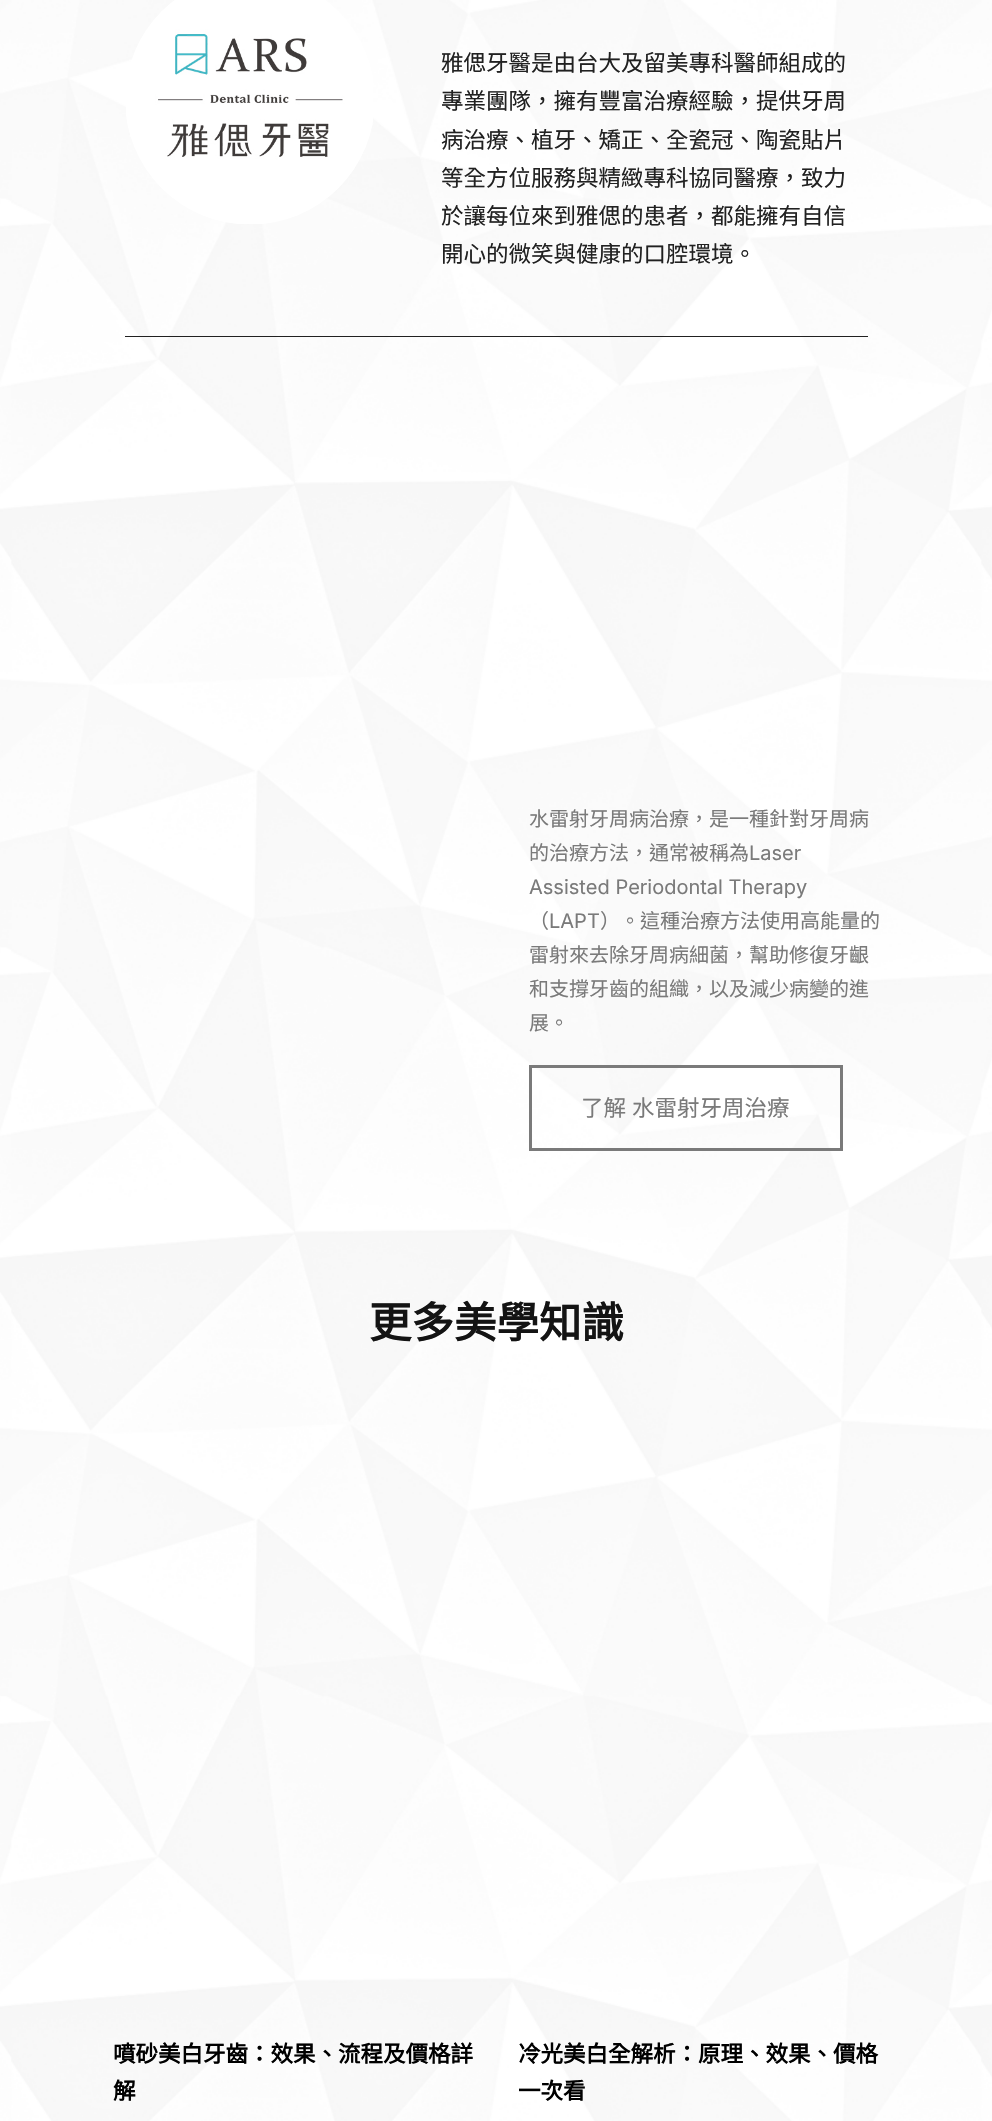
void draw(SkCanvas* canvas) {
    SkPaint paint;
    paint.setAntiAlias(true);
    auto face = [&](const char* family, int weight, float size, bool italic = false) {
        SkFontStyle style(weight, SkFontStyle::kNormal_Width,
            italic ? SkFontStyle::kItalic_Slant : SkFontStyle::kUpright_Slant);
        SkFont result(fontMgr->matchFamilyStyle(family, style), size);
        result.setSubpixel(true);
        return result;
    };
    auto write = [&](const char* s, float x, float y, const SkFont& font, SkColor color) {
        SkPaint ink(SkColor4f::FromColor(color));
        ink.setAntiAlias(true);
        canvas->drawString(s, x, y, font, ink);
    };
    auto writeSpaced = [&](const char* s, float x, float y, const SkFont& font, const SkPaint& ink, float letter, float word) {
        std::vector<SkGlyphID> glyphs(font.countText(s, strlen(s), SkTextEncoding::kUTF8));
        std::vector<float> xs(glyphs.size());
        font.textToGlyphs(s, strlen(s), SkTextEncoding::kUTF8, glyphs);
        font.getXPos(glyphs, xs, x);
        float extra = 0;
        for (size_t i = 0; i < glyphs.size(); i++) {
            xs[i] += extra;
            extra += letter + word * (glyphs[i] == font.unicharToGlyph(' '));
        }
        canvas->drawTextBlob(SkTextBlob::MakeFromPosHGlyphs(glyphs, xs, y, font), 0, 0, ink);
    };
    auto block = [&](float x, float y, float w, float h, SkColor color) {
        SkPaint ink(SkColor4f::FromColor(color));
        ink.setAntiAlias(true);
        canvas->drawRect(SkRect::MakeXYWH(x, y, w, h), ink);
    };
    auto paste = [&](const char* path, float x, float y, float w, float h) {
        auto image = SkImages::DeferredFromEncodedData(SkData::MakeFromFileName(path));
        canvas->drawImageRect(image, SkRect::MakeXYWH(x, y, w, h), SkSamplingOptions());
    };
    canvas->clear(SK_ColorWHITE);
    paste("pic1.png", 0, 0, 992, 2121);
    paste("pic2.png", 126, 0, 247, 224);
    auto kFont1 = face("Noto Sans CJK TC", 400, 22.5f);
    write("雅偲牙醫是由台大及留美專科醫師組成的", 441, 71, kFont1, SkColorSetRGB(33, 33, 33));
    write("專業團隊，擁有豐富治療經驗，提供牙周", 441, 109, kFont1, SkColorSetRGB(33, 33, 33));
    write("病治療、植牙、矯正、全瓷冠、陶瓷貼片", 441, 148, kFont1, SkColorSetRGB(33, 33, 33));
    write("等全方位服務與精緻專科協同醫療，致力", 441, 186, kFont1, SkColorSetRGB(33, 33, 33));
    write("於讓每位來到雅偲的患者，都能擁有自信", 441, 224, kFont1, SkColorSetRGB(33, 33, 33));
    write("開心的微笑與健康的口腔環境。", 441, 262, kFont1, SkColorSetRGB(33, 33, 33));
    block(125, 336, 743, 1, SkColorSetRGB(33, 33, 33));
    auto kFont2 = face("Noto Sans CJK TC", 400, 20);
    write("水雷射牙周病治療，是一種針對牙周病", 529, 826, kFont2, SkColorSetRGB(122, 122, 122));
    write("的治療方法，通常被稱為", 529, 860, kFont2, SkColorSetRGB(122, 122, 122));
    auto kFont3 = face("Inter", 400, 20);
    write("Laser", 749, 860, kFont3, SkColorSetRGB(122, 122, 122));
    write("Assisted Periodontal Therapy", 529, 894, kFont3, SkColorSetRGB(122, 122, 122));
    write("（", 529, 928, kFont2, SkColorSetRGB(122, 122, 122));
    write("LAPT", 549, 928, kFont3, SkColorSetRGB(122, 122, 122));
    write("）。這種治療方法使用高能量的", 600, 928, kFont2, SkColorSetRGB(122, 122, 122));
    write("雷射來去除牙周病細菌，幫助修復牙齦", 529, 962, kFont2, SkColorSetRGB(122, 122, 122));
    write("和支撐牙齒的組織，以及減少病變的進", 529, 996, kFont2, SkColorSetRGB(122, 122, 122));
    write("展。", 529, 1030, kFont2, SkColorSetRGB(122, 122, 122));
    paint.setStyle(SkPaint::kStroke_Style);
    paint.setStrokeWidth(3);
    paint.setColor(SkColorSetRGB(122, 122, 122));
    canvas->drawRect(SkRect::MakeXYWH(530.5f, 1066.5f, 311, 83), paint);
    paint.setStyle(SkPaint::kFill_Style);
    writeSpaced("了解 水雷射牙周治療", 581, 1116, kFont1, paint, 0, 1);
    auto kFont4 = face("Noto Sans CJK TC", 700, 42.5f);
    write("更多美學知識", 369, 1338, kFont4, SkColorSetRGB(20, 20, 20));
    auto kFont5 = face("Noto Sans CJK TC", 700, 22.5f);
    write("噴砂美白牙齒：效果、流程及價格詳", 113, 2062, kFont5, SK_ColorBLACK);
    write("解", 113, 2099, kFont5, SK_ColorBLACK);
    write("冷光美白全解析：原理、效果、價格", 518, 2062, kFont5, SK_ColorBLACK);
    write("一次看", 518, 2099, kFont5, SK_ColorBLACK);
}
